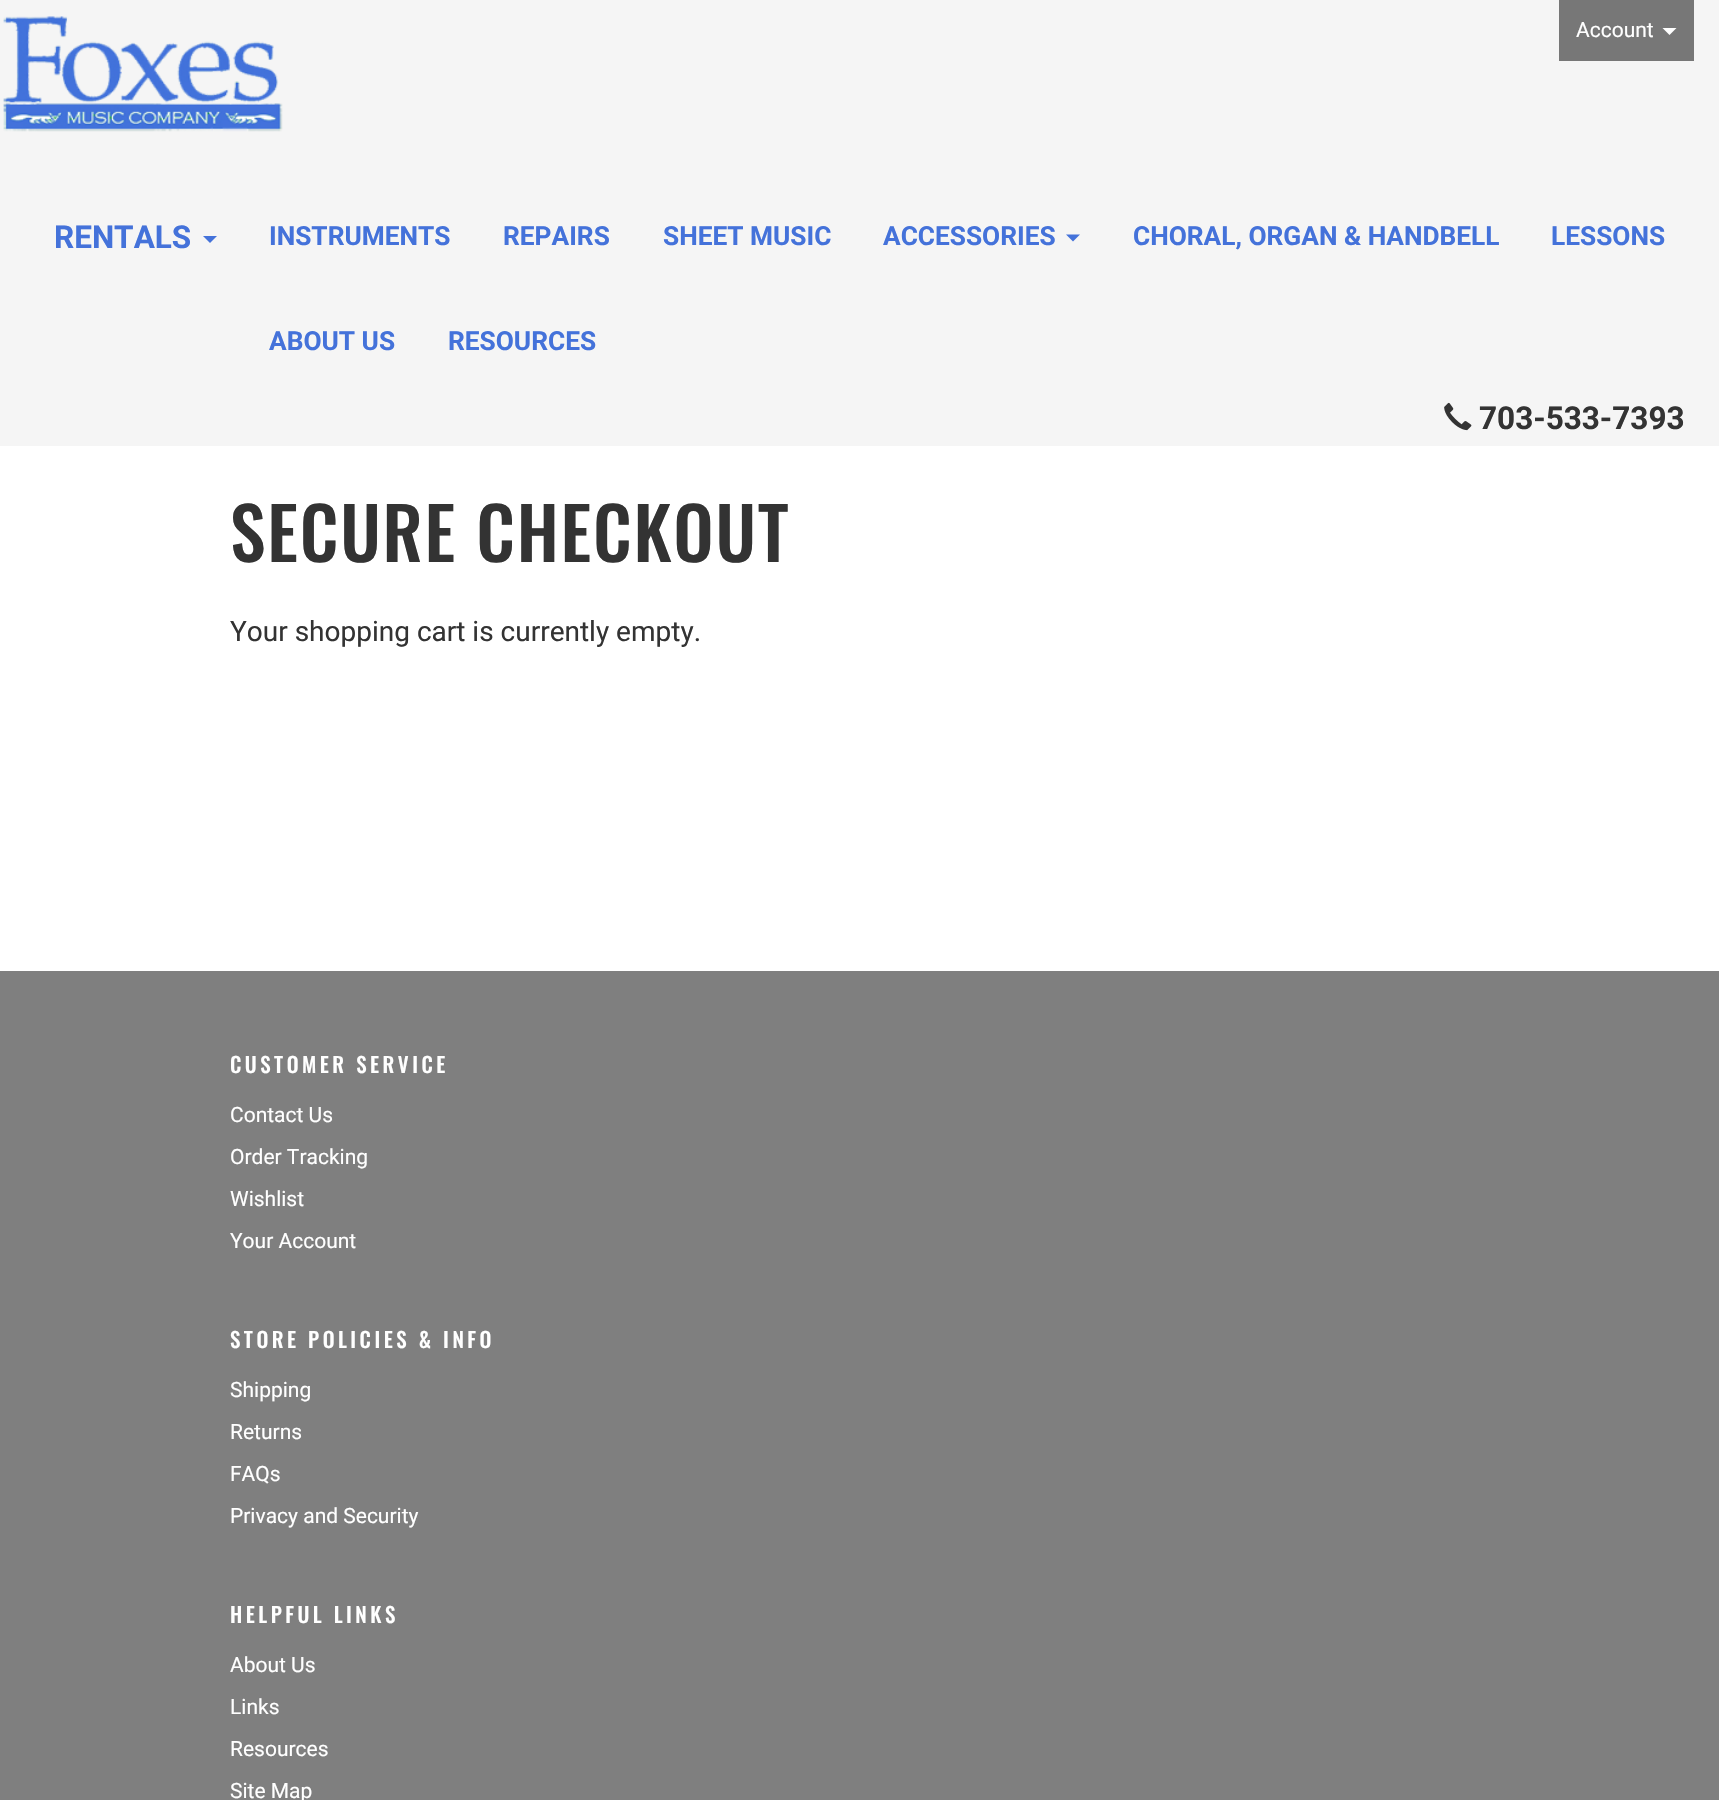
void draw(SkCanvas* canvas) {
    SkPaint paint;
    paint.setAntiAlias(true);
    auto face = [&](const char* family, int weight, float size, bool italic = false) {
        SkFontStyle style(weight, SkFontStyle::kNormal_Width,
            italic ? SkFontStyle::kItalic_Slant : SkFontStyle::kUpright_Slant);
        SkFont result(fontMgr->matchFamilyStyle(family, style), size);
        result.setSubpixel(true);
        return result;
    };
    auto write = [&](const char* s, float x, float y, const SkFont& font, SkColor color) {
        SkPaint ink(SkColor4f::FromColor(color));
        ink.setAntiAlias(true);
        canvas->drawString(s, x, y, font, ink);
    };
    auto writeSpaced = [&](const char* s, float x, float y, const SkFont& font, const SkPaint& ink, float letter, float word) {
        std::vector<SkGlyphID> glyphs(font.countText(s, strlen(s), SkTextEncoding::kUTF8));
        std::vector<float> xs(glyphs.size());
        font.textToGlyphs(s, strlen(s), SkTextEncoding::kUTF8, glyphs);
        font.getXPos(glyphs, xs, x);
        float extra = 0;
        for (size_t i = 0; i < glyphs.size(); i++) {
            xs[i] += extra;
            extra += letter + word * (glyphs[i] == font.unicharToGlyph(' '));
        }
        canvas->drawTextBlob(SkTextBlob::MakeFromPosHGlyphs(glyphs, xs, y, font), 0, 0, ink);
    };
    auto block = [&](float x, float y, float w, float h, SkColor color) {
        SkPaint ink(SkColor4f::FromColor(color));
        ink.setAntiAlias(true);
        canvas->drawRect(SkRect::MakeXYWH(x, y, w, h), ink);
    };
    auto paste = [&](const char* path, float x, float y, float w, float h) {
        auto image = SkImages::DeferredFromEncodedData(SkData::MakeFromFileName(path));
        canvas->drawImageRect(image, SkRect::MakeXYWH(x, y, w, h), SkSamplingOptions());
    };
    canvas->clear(SK_ColorWHITE);
    block(0, 0, 1719, 446, SkColorSetRGB(245, 245, 245));
    paste("pic1.png", 3, 16, 280, 116);
    block(1559, 0, 135, 61, SkColorSetRGB(119, 119, 119));
    auto kFont1 = face("Roboto", 400, 21);
    write("Account", 1576, 37, kFont1, SK_ColorWHITE);
    paint.setColor(SK_ColorWHITE);
    canvas->drawPath(SkPathBuilder().moveTo(1662.5f, 28).lineTo(1676.5f, 28).lineTo(1669.5f, 35).close().detach(), paint);
    auto kFont2 = face("Roboto", 700, 31.5f);
    write("RENTALS", 54, 248, kFont2, SkColorSetRGB(68, 114, 218));
    paint.setColor(SkColorSetRGB(68, 114, 218));
    canvas->drawPath(SkPathBuilder().moveTo(203, 236).lineTo(217, 236).lineTo(210, 243).close().detach(), paint);
    auto kFont3 = face("Roboto", 700, 26.25f);
    write("INSTRUMENTS", 269, 245, kFont3, SkColorSetRGB(68, 114, 218));
    write("REPAIRS", 503, 245, kFont3, SkColorSetRGB(68, 114, 218));
    write("SHEET MUSIC", 663, 245, kFont3, SkColorSetRGB(68, 114, 218));
    write("ACCESSORIES", 883, 245, kFont3, SkColorSetRGB(68, 114, 218));
    canvas->drawPath(SkPathBuilder().moveTo(1066, 234.5f).lineTo(1080, 234.5f).lineTo(1073, 241.5f).close().detach(), paint);
    write("CHORAL, ORGAN & HANDBELL", 1133, 245, kFont3, SkColorSetRGB(68, 114, 218));
    write("LESSONS", 1551, 245, kFont3, SkColorSetRGB(68, 114, 218));
    write("ABOUT US", 269, 350, kFont3, SkColorSetRGB(68, 114, 218));
    write("RESOURCES", 448, 350, kFont3, SkColorSetRGB(68, 114, 218));
    paste("pic2.png", 1444, 402, 28, 29);
    write("703-533-7393", 1479, 429, kFont2, SkColorSetRGB(51, 51, 51));
    auto kFont4 = face("Oswald", 500, 71.75f);
    paint.setColor(SkColorSetRGB(51, 51, 51));
    writeSpaced("SECURE CHECKOUT", 230, 562, kFont4, paint, 1.75f, 0);
    auto kFont5 = face("Roboto", 400, 28);
    write("Your shopping cart is currently empty.", 230, 641, kFont5, SkColorSetRGB(51, 51, 51));
    block(0, 971, 1719, 829, SkColorSetRGB(127, 127, 127));
    auto kFont6 = face("Oswald", 500, 21);
    paint.setColor(SK_ColorWHITE);
    writeSpaced("CUSTOMER SERVICE", 230, 1073, kFont6, paint, 3.5f, 0);
    write("Contact Us", 230, 1122, kFont1, SK_ColorWHITE);
    write("Order Tracking", 230, 1164, kFont1, SK_ColorWHITE);
    write("Wishlist", 230, 1206, kFont1, SK_ColorWHITE);
    write("Your Account", 230, 1248, kFont1, SK_ColorWHITE);
    writeSpaced("STORE POLICIES & INFO", 230, 1348, kFont6, paint, 3.5f, 0);
    write("Shipping", 230, 1397, kFont1, SK_ColorWHITE);
    write("Returns", 230, 1439, kFont1, SK_ColorWHITE);
    write("FAQs", 230, 1481, kFont1, SK_ColorWHITE);
    write("Privacy and Security", 230, 1523, kFont1, SK_ColorWHITE);
    writeSpaced("HELPFUL LINKS", 230, 1623, kFont6, paint, 3.5f, 0);
    write("About Us", 230, 1672, kFont1, SK_ColorWHITE);
    write("Links", 230, 1714, kFont1, SK_ColorWHITE);
    write("Resources", 230, 1756, kFont1, SK_ColorWHITE);
    write("Site Map", 230, 1798, kFont1, SK_ColorWHITE);
}
